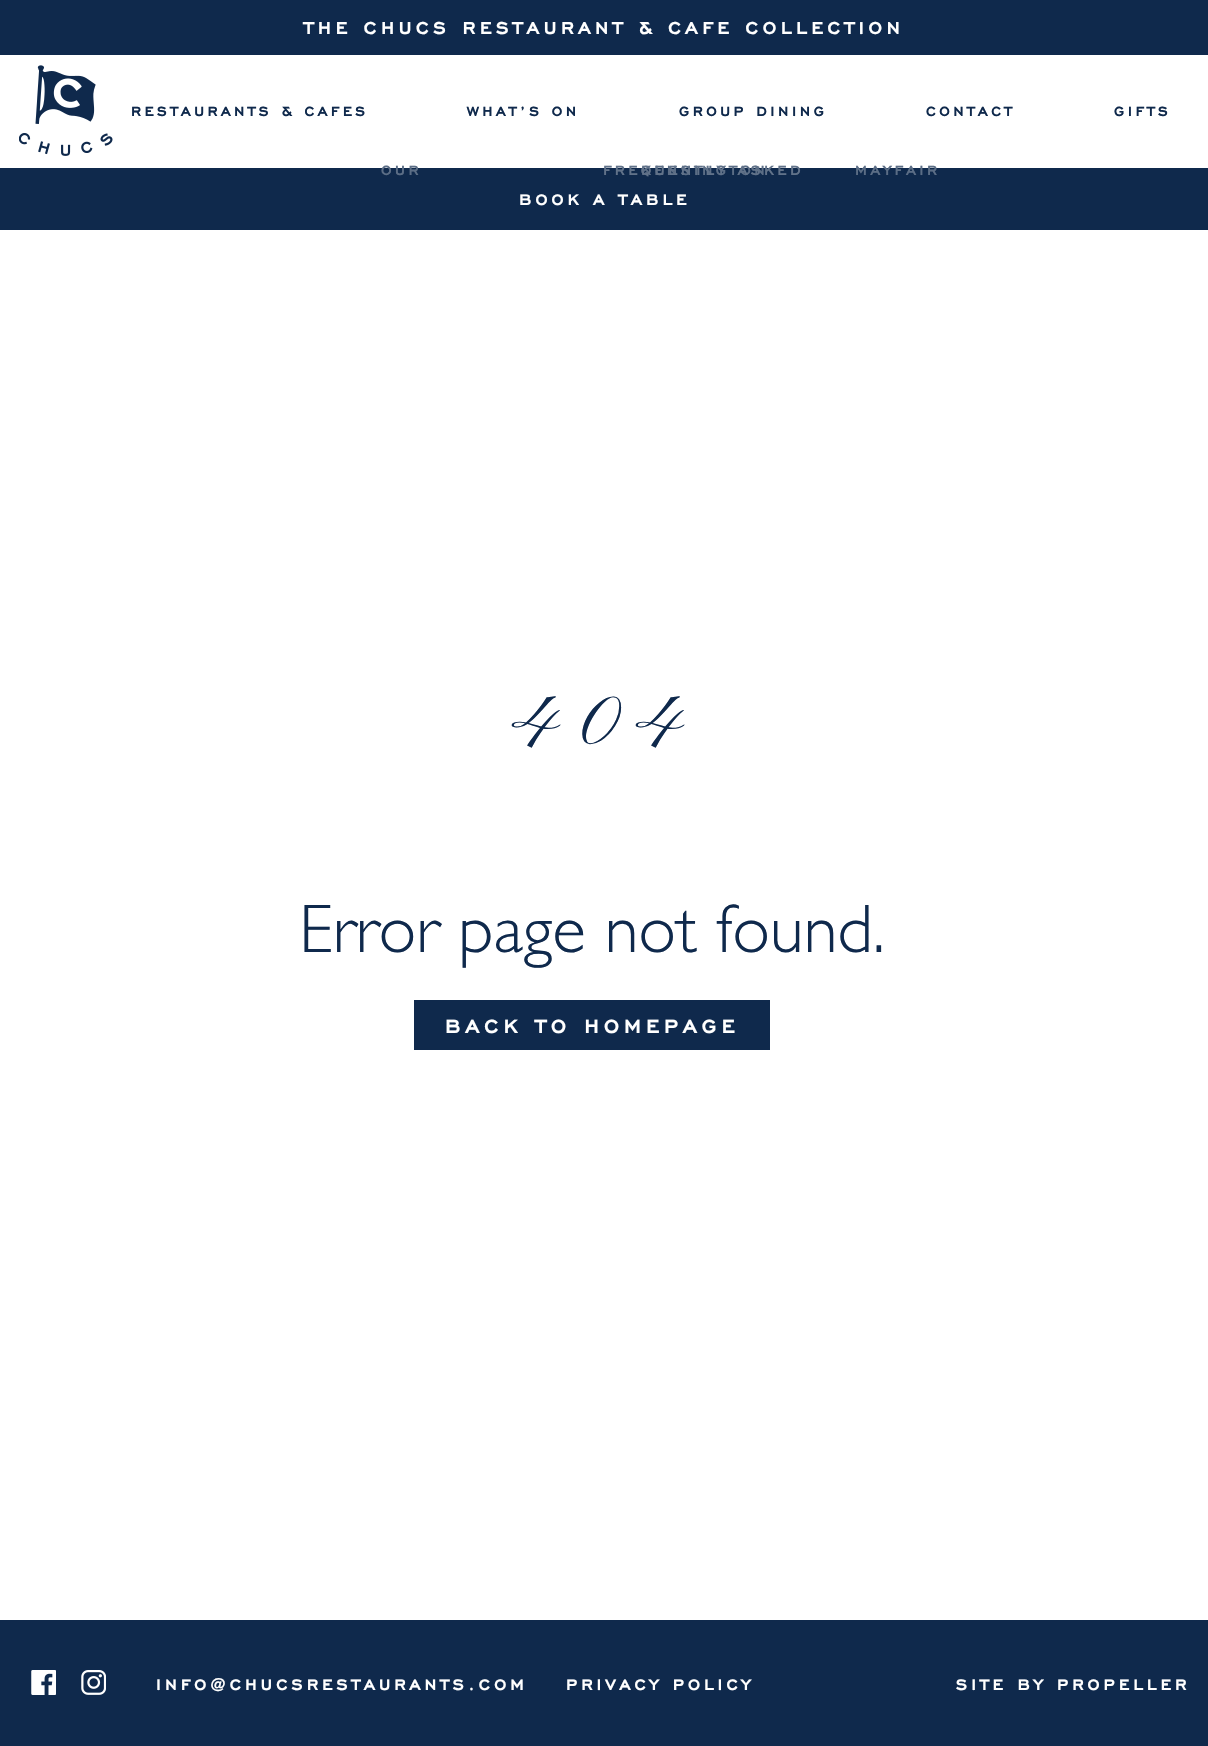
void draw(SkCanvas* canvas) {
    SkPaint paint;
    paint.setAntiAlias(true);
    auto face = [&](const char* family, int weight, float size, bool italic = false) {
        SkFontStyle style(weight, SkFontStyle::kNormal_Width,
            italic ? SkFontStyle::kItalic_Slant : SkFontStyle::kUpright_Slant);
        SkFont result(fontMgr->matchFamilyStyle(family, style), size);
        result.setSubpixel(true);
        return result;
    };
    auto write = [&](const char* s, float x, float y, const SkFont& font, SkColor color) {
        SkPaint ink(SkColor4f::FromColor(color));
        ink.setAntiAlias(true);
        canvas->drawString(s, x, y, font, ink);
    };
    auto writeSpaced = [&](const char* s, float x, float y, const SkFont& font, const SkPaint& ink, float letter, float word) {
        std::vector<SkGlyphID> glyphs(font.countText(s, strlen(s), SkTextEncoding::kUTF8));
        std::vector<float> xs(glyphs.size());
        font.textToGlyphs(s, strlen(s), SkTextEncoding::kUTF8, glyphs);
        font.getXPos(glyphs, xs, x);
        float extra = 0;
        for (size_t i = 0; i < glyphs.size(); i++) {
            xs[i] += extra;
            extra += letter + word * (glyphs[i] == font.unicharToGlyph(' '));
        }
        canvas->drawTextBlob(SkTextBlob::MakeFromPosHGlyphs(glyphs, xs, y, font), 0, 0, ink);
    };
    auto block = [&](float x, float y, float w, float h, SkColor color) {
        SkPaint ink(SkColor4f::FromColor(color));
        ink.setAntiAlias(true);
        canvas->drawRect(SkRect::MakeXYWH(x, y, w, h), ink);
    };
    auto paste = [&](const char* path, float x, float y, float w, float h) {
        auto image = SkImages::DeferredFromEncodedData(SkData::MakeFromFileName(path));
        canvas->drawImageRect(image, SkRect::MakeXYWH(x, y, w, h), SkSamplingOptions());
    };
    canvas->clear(SK_ColorWHITE);
    block(0, 0, 1208, 55, SkColorSetRGB(15, 41, 76));
    auto kFont1 = face("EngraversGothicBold", 700, 22.5f);
    paint.setColor(SK_ColorWHITE);
    writeSpaced("THE CHUCS RESTAURANT & CAFE COLLECTION", 304, 34, kFont1, paint, 4.5f, 0);
    paste("pic1.png", 19, 65, 94, 91);
    auto kFont2 = face("EngraversGothicBold", 700, 17.5f);
    paint.setColor(SkColorSetRGB(15, 41, 76));
    writeSpaced("RESTAURANTS & CAFES", 131, 116, kFont2, paint, 3.5f, 0);
    block(0, 168, 1208, 62, SkColorSetRGB(15, 41, 76));
    paint.setColor(SkColorSetRGB(91, 109, 133));
    writeSpaced("KENSINGTON", 641, 175, kFont2, paint, 3.5f, 0);
    writeSpaced("MAYFAIR", 855, 175, kFont2, paint, 3.5f, 0);
    paint.setColor(SkColorSetRGB(15, 41, 76));
    writeSpaced("CONTACT", 926, 116, kFont2, paint, 3.5f, 0);
    paint.setColor(SkColorSetRGB(91, 109, 133));
    writeSpaced("OUR", 381, 175, kFont2, paint, 3.5f, 0);
    paint.setColor(SkColorSetRGB(97, 114, 137));
    writeSpaced("FREQUENTLY ASKED", 603, 175, kFont2, paint, 3.5f, 0);
    paint.setColor(SkColorSetRGB(15, 41, 76));
    writeSpaced("WHAT’S ON", 467, 116, kFont2, paint, 3.5f, 0);
    writeSpaced("GROUP DINING", 679, 116, kFont2, paint, 3.5f, 0);
    writeSpaced("GIFTS", 1114, 116, kFont2, paint, 3.5f, 0);
    auto kFont3 = face("EngraversGothicBold", 700, 20);
    paint.setColor(SK_ColorWHITE);
    writeSpaced("BOOK A TABLE", 519, 205, kFont3, paint, 4, 0);
    auto kFont4 = face("Pinyon Script", 400, 69);
    paint.setColor(SkColorSetRGB(15, 41, 76));
    writeSpaced("404", 509, 744, kFont4, paint, 14, 0);
    auto kFont5 = face("Gill Sans", 300, 69);
    write("Error page not found.", 299, 952, kFont5, SkColorSetRGB(15, 41, 76));
    block(414, 1000, 356, 50, SkColorSetRGB(15, 41, 76));
    auto kFont6 = face("EngraversGothicBold", 700, 25);
    paint.setColor(SK_ColorWHITE);
    writeSpaced("BACK TO HOMEPAGE", 445, 1033, kFont6, paint, 5, 0);
    block(0, 1620, 1208, 126, SkColorSetRGB(15, 41, 76));
    paste("pic2.png", 31, 1670, 25, 25);
    paste("pic3.png", 81, 1670, 25, 25);
    writeSpaced("INFO@CHUCSRESTAURANTS.COM", 156, 1690, kFont3, paint, 4, 0);
    writeSpaced("PRIVACY POLICY", 566, 1690, kFont3, paint, 4, 0);
    writeSpaced("SITE BY PROPELLER", 956, 1690, kFont3, paint, 4, 0);
}
